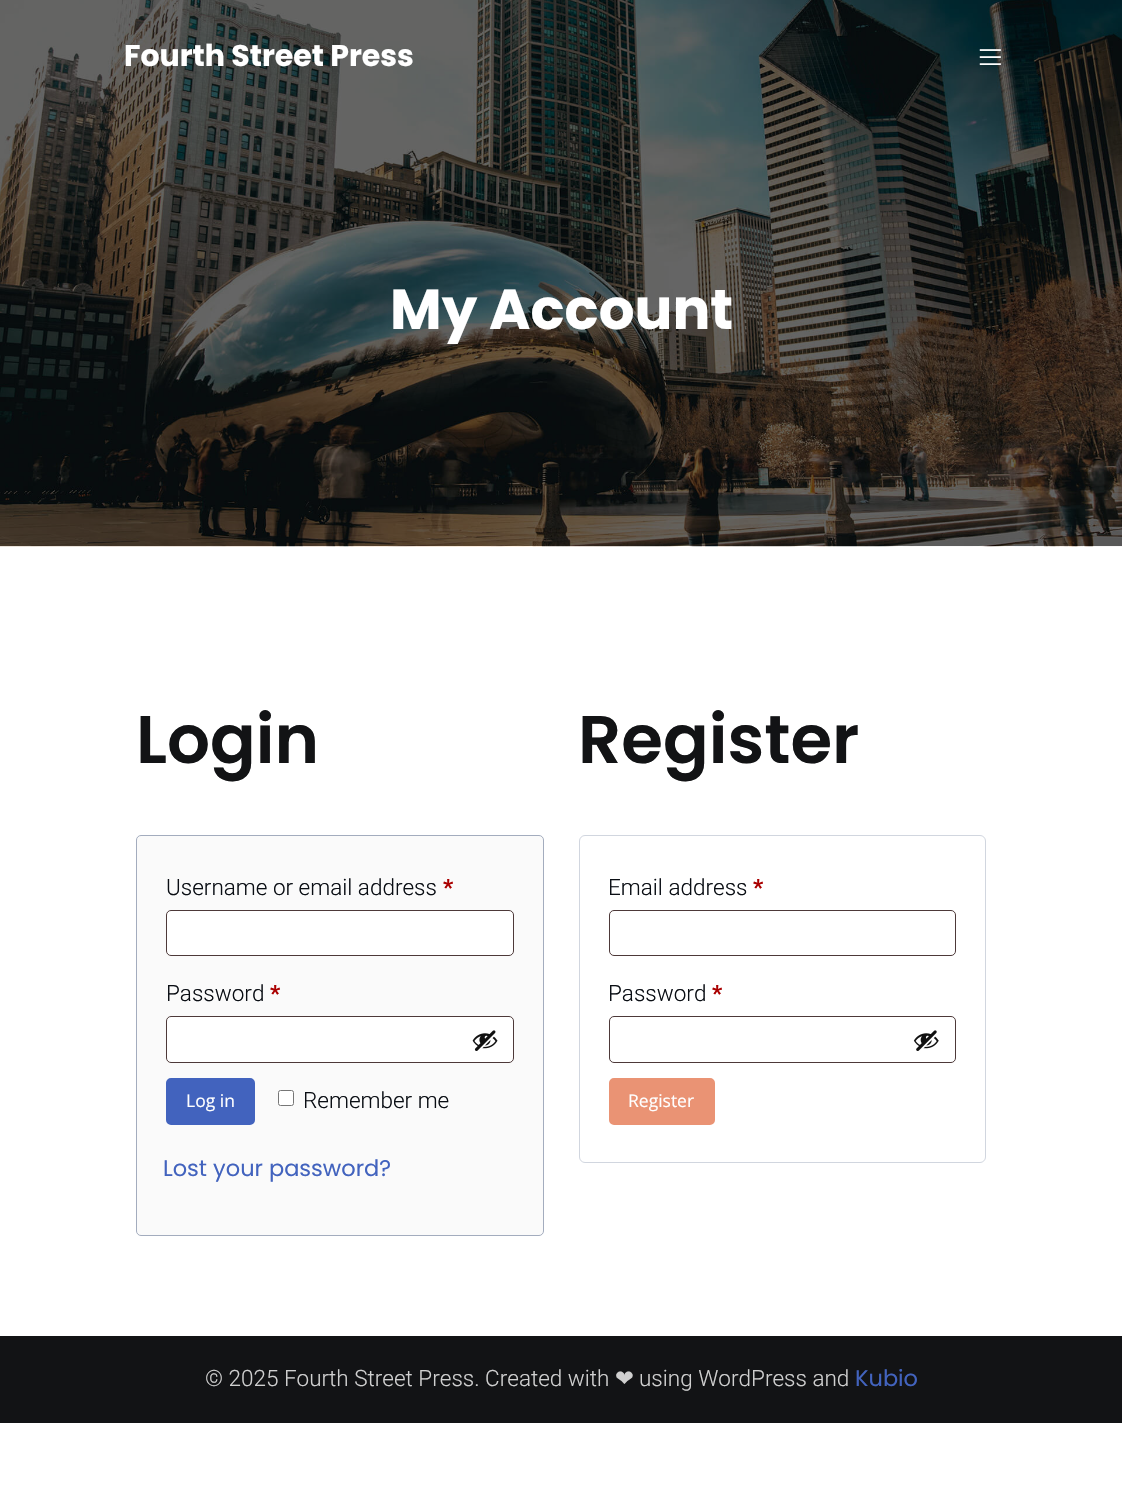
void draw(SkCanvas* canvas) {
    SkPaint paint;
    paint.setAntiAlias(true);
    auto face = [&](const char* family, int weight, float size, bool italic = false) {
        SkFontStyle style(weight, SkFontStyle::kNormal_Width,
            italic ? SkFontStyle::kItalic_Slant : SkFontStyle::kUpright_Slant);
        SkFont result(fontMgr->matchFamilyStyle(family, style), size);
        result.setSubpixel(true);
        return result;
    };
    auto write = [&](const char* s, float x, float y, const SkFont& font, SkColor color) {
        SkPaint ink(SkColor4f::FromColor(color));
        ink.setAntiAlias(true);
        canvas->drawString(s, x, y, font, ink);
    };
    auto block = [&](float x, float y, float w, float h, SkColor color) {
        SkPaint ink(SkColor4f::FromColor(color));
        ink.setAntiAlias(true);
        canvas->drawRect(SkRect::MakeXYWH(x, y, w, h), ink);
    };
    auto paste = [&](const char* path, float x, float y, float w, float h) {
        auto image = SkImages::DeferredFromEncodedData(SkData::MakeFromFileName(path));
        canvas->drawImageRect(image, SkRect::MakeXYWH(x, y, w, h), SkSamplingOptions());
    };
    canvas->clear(SK_ColorWHITE);
    paste("pic2.png", 0, 0, 1122, 547);
    auto kFont1 = face("Poppins", 700, 30);
    write("Fourth Street Press", 124, 66, kFont1, SK_ColorWHITE);
    paste("pic1.png", 979, 49, 22, 16);
    auto kFont2 = face("Poppins", 700, 56.25f);
    write("My Account", 390, 329, kFont2, SK_ColorWHITE);
    auto kFont3 = face("Poppins", 600, 67.5f);
    write("Login", 136, 763, kFont3, SkColorSetRGB(18, 19, 21));
    paint.setColor(SkColorSetRGB(250, 250, 250));
    canvas->drawRoundRect(SkRect::MakeXYWH(136.5f, 835.5f, 407, 400), 4.5f, 4.5f, paint);
    paint.setStyle(SkPaint::kStroke_Style);
    paint.setStrokeWidth(1);
    paint.setColor(SkColorSetRGB(163, 172, 190));
    canvas->drawRoundRect(SkRect::MakeXYWH(136.5f, 835.5f, 407, 400), 4.5f, 4.5f, paint);
    auto kFont4 = face("Roboto", 300, 22.5f);
    write("Username or email address", 166, 895, kFont4, SkColorSetRGB(10, 14, 20));
    auto kFont5 = face("Roboto", 700, 22.5f);
    write("*", 443, 895, kFont5, SkColorSetRGB(170, 0, 0));
    paint.setStyle(SkPaint::kFill_Style);
    paint.setColor(SK_ColorWHITE);
    canvas->drawRoundRect(SkRect::MakeXYWH(166.5f, 910.5f, 347, 45), 4.5f, 4.5f, paint);
    paint.setStyle(SkPaint::kStroke_Style);
    paint.setColor(SkColorSetRGB(77, 57, 57));
    canvas->drawRoundRect(SkRect::MakeXYWH(166.5f, 910.5f, 347, 45), 4.5f, 4.5f, paint);
    write("Password", 166, 1001, kFont4, SkColorSetRGB(10, 14, 20));
    write("*", 270, 1001, kFont5, SkColorSetRGB(170, 0, 0));
    paint.setStyle(SkPaint::kFill_Style);
    paint.setColor(SK_ColorWHITE);
    canvas->drawRoundRect(SkRect::MakeXYWH(166.5f, 1016.5f, 347, 46), 4.5f, 4.5f, paint);
    paint.setStyle(SkPaint::kStroke_Style);
    paint.setColor(SkColorSetRGB(77, 57, 57));
    canvas->drawRoundRect(SkRect::MakeXYWH(166.5f, 1016.5f, 347, 46), 4.5f, 4.5f, paint);
    paste("pic3.png", 472, 1030, 26, 21);
    paint.setStyle(SkPaint::kFill_Style);
    paint.setColor(SkColorSetRGB(66, 99, 190));
    canvas->drawRoundRect(SkRect::MakeXYWH(167.5f, 1079.5f, 86, 44), 3.5f, 3.5f, paint);
    paint.setStyle(SkPaint::kStroke_Style);
    paint.setStrokeWidth(3);
    canvas->drawRoundRect(SkRect::MakeXYWH(167.5f, 1079.5f, 86, 44), 3.5f, 3.5f, paint);
    auto kFont6 = face("Open Sans", 400, 17.5f);
    write("Log in", 186, 1107, kFont6, SK_ColorWHITE);
    paint.setStyle(SkPaint::kFill_Style);
    paint.setColor(SK_ColorWHITE);
    canvas->drawRoundRect(SkRect::MakeXYWH(278.5f, 1090.5f, 15, 15), 2, 2, paint);
    paint.setStyle(SkPaint::kStroke_Style);
    paint.setStrokeWidth(1);
    paint.setColor(SkColorSetRGB(118, 118, 118));
    canvas->drawRoundRect(SkRect::MakeXYWH(278.5f, 1090.5f, 15, 15), 2, 2, paint);
    write("Remember me", 303, 1108, kFont4, SkColorSetRGB(10, 14, 20));
    auto kFont7 = face("Poppins", 400, 22.5f);
    write("Lost your password?", 163, 1176, kFont7, SkColorSetRGB(66, 99, 190));
    write("Register", 578, 763, kFont3, SkColorSetRGB(18, 19, 21));
    paint.setColor(SkColorSetRGB(209, 214, 223));
    canvas->drawRoundRect(SkRect::MakeXYWH(579.5f, 835.5f, 406, 327), 5.5f, 5.5f, paint);
    write("Email address", 608, 895, kFont4, SkColorSetRGB(10, 14, 20));
    write("*", 753, 895, kFont5, SkColorSetRGB(170, 0, 0));
    paint.setColor(SkColorSetRGB(77, 57, 57));
    canvas->drawRoundRect(SkRect::MakeXYWH(609.5f, 910.5f, 346, 45), 4.5f, 4.5f, paint);
    write("Password", 608, 1001, kFont4, SkColorSetRGB(10, 14, 20));
    write("*", 712, 1001, kFont5, SkColorSetRGB(170, 0, 0));
    canvas->drawRoundRect(SkRect::MakeXYWH(609.5f, 1016.5f, 346, 46), 4.5f, 4.5f, paint);
    paste("pic4.png", 913, 1030, 26, 21);
    paint.setStyle(SkPaint::kFill_Style);
    paint.setColor(SkColorSetRGB(234, 147, 116));
    canvas->drawRoundRect(SkRect::MakeXYWH(610.5f, 1079.5f, 103, 44), 3.5f, 3.5f, paint);
    paint.setStyle(SkPaint::kStroke_Style);
    paint.setStrokeWidth(3);
    canvas->drawRoundRect(SkRect::MakeXYWH(610.5f, 1079.5f, 103, 44), 3.5f, 3.5f, paint);
    write("Register", 628, 1107, kFont6, SK_ColorWHITE);
    block(0, 1336, 1122, 87, SkColorSetRGB(18, 19, 21));
    write("© 2025 Fourth Street Press. Created with", 205, 1386, kFont4, SkColorSetRGB(208, 208, 208));
    auto kFont8 = face("DejaVu Sans", 400, 22.5f);
    write("❤", 615, 1386, kFont8, SkColorSetRGB(208, 208, 208));
    write("using WordPress and", 639, 1386, kFont4, SkColorSetRGB(208, 208, 208));
    write("Kubio", 855, 1386, kFont7, SkColorSetRGB(66, 99, 190));
}
